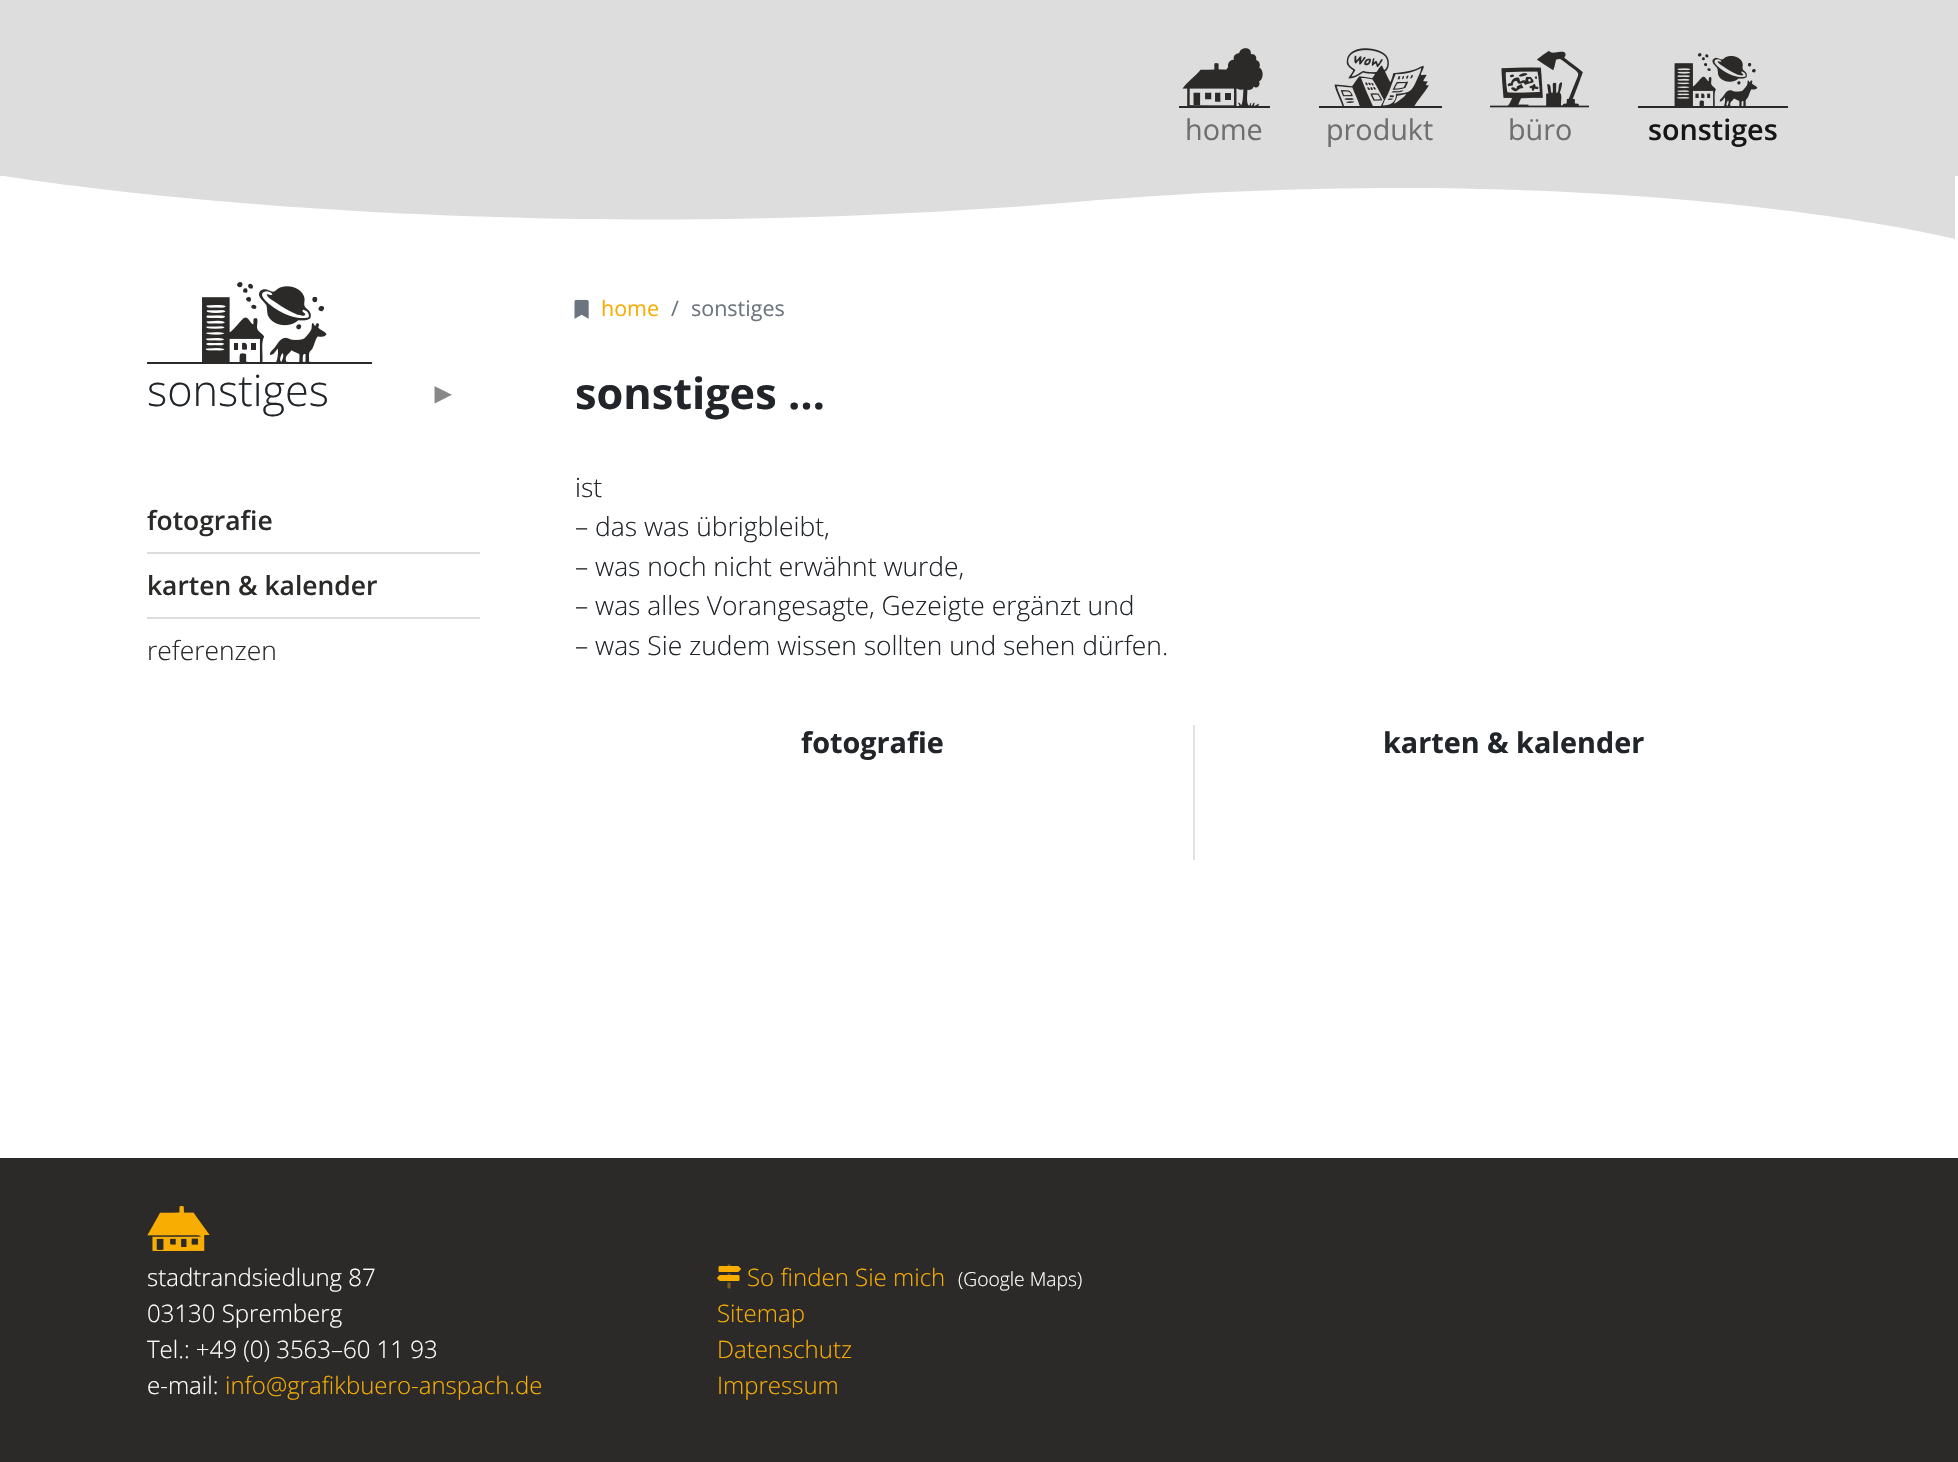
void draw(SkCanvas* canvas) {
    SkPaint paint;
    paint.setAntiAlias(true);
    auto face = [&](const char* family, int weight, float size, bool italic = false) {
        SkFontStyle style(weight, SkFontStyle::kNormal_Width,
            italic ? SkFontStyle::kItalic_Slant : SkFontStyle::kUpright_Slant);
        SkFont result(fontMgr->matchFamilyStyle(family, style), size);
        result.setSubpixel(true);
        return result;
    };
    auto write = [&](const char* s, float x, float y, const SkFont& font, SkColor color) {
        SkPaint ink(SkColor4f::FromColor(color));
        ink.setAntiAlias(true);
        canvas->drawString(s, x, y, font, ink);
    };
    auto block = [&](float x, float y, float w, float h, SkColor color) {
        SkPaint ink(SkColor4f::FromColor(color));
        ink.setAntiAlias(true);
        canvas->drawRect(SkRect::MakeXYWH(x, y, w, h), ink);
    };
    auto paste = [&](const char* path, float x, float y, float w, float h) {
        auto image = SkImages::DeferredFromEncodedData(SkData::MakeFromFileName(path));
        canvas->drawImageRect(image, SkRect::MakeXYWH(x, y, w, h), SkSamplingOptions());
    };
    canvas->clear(SK_ColorWHITE);
    block(0, 0, 1958, 176, SkColorSetRGB(222, 221, 221));
    paste("pic1.png", 1179, 48, 91, 60);
    auto kFont1 = face("Open Sans", 400, 28.75f);
    write("home", 1185, 140, kFont1, SkColorSetRGB(111, 111, 111));
    paste("pic2.png", 1319, 48, 123, 60);
    write("produkt", 1326, 140, kFont1, SkColorSetRGB(111, 111, 111));
    paste("pic3.png", 1490, 50, 99, 58);
    write("büro", 1508, 140, kFont1, SkColorSetRGB(111, 111, 111));
    paste("pic4.png", 1638, 53, 150, 55);
    auto kFont2 = face("Open Sans", 600, 28.75f);
    write("sonstiges", 1648, 140, kFont2, SkColorSetRGB(22, 22, 22));
    paint.setColor(SkColorSetRGB(222, 221, 221));
    canvas->drawPath(SkPathBuilder().moveTo(4, 176).cubicTo(4, 176, 465, 253, 1076, 202).cubicTo(1621, 156, 1955, 239, 1955, 239).lineTo(1955, 176).close().detach(), paint);
    paste("pic5.png", 147, 282, 225, 82);
    auto kFont3 = face("Open Sans", 300, 43.25f);
    write("sonstiges", 147, 406, kFont3, SkColorSetRGB(33, 37, 41));
    auto kFont4 = face("Liberation Serif", 400, 28.75f);
    write("►", 429, 403, kFont4, SkColorSetRGB(136, 136, 136));
    block(147, 552, 333, 2, SkColorSetRGB(222, 221, 221));
    auto kFont5 = face("Open Sans", 600, 26.4f);
    write("fotografie", 147, 530, kFont5, SkColorSetRGB(43, 42, 41));
    block(147, 617, 333, 2, SkColorSetRGB(222, 221, 221));
    write("karten & kalender", 147, 595, kFont5, SkColorSetRGB(43, 42, 41));
    auto kFont6 = face("Open Sans", 300, 26.4f);
    write("referenzen", 147, 660, kFont6, SkColorSetRGB(43, 42, 41));
    paste("pic6.png", 574, 299, 15, 20);
    auto kFont7 = face("Open Sans", 400, 21.5f);
    write("home", 601, 316, kFont7, SkColorSetRGB(248, 173, 3));
    write("/", 671, 316, kFont7, SkColorSetRGB(108, 117, 125));
    write("sonstiges", 691, 316, kFont7, SkColorSetRGB(108, 117, 125));
    auto kFont8 = face("Open Sans", 700, 43.25f);
    write("sonstiges …", 575, 409, kFont8, SkColorSetRGB(33, 37, 41));
    write("ist", 575, 497, kFont6, SkColorSetRGB(33, 37, 41));
    write("– das was übrigbleibt,", 575, 536, kFont6, SkColorSetRGB(33, 37, 41));
    write("– was noch nicht erwähnt wurde,", 575, 576, kFont6, SkColorSetRGB(33, 37, 41));
    write("– was alles Vorangesagte, Gezeigte ergänzt und", 575, 615, kFont6, SkColorSetRGB(33, 37, 41));
    write("– was Sie zudem wissen sollten und sehen dürfen.", 575, 655, kFont6, SkColorSetRGB(33, 37, 41));
    auto kFont9 = face("Open Sans", 700, 28.75f);
    write("fotografie", 801, 753, kFont9, SkColorSetRGB(33, 37, 41));
    block(1193, 725, 2, 135, SkColorSetRGB(222, 226, 230));
    write("karten & kalender", 1383, 753, kFont9, SkColorSetRGB(33, 37, 41));
    block(0, 1158, 1958, 304, SkColorSetRGB(43, 42, 41));
    paste("pic7.png", 147, 1206, 63, 45);
    auto kFont10 = face("Open Sans", 300, 24);
    write("stadtrandsiedlung 87", 147, 1286, kFont10, SK_ColorWHITE);
    write("03130 Spremberg", 147, 1322, kFont10, SK_ColorWHITE);
    write("Tel.: +49 (0) 3563–60 11 93", 147, 1358, kFont10, SK_ColorWHITE);
    write("e-mail:", 147, 1394, kFont10, SK_ColorWHITE);
    write("info@grafikbuero-anspach.de", 225, 1394, kFont10, SkColorSetRGB(248, 173, 3));
    paste("pic9.png", 717, 1266, 24, 15);
    paste("pic8.png", 727, 1264, 4, 25);
    write("So finden Sie mich", 747, 1286, kFont10, SkColorSetRGB(248, 173, 3));
    auto kFont11 = face("Open Sans", 300, 19.25f);
    write("(Google Maps)", 958, 1286, kFont11, SK_ColorWHITE);
    write("Sitemap", 717, 1322, kFont10, SkColorSetRGB(248, 173, 3));
    write("Datenschutz", 717, 1358, kFont10, SkColorSetRGB(248, 173, 3));
    write("Impressum", 717, 1394, kFont10, SkColorSetRGB(248, 173, 3));
}
